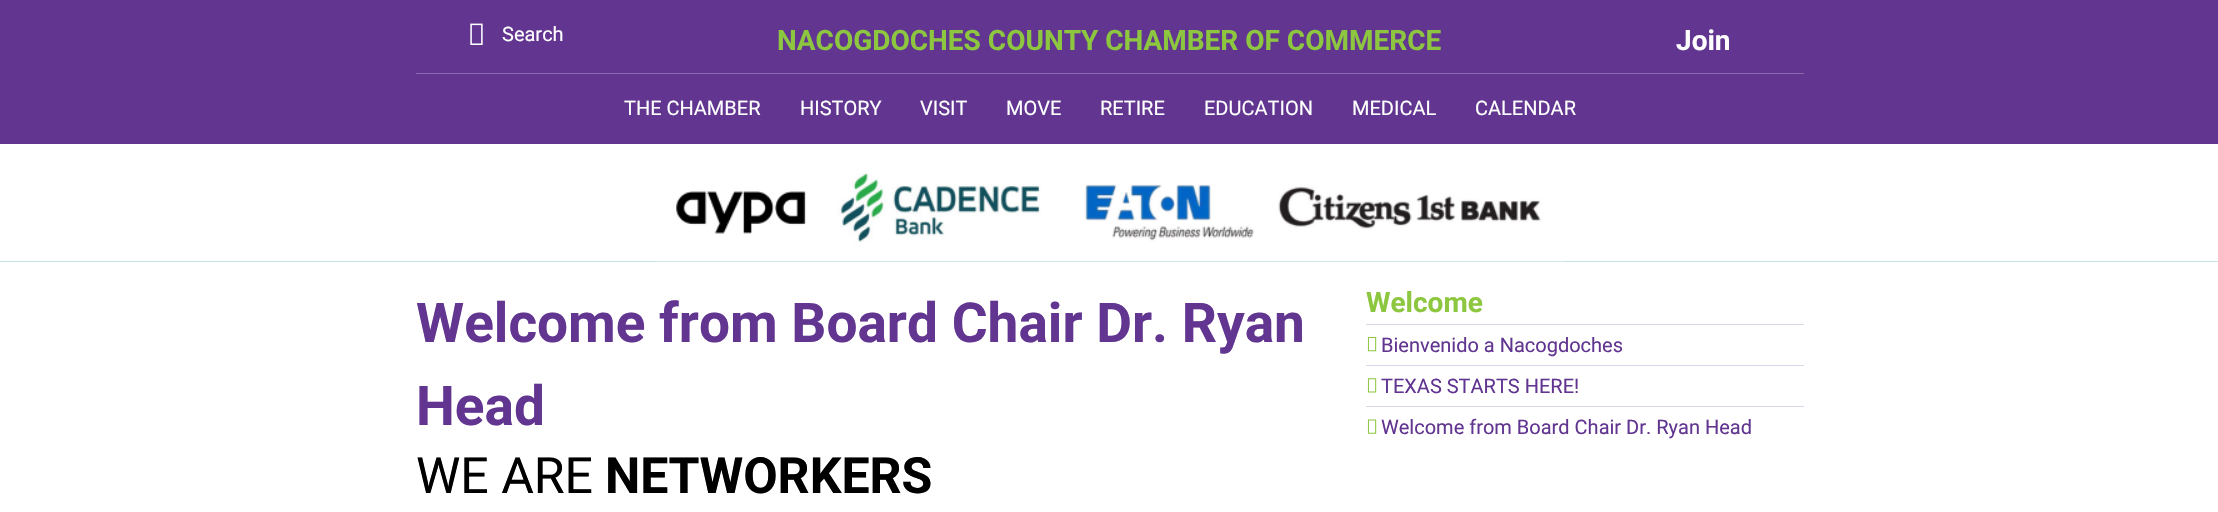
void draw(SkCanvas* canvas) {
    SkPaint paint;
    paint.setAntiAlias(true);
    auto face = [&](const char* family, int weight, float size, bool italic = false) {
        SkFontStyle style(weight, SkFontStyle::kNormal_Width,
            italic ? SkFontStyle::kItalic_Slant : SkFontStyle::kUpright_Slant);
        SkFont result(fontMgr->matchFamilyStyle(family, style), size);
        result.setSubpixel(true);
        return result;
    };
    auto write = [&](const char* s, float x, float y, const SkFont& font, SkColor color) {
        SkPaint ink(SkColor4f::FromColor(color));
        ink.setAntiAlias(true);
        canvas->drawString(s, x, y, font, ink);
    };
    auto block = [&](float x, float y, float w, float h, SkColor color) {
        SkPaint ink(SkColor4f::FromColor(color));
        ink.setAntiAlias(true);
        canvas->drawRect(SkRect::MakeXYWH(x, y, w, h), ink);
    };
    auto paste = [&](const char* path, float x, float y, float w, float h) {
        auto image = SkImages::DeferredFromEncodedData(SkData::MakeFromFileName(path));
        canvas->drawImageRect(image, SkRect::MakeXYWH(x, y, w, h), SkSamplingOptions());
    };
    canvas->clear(SkColorSetRGB(97, 53, 144));
    paste("pic1.png", 470, 23, 13, 22);
    auto kFont1 = face("Roboto", 400, 20);
    write("Search", 502, 41, kFont1, SK_ColorWHITE);
    auto kFont2 = face("Roboto", 700, 28);
    write("NACOGDOCHES COUNTY CHAMBER OF COMMERCE", 777, 50, kFont2, SkColorSetRGB(141, 198, 63));
    write("Join", 1676, 50, kFont2, SK_ColorWHITE);
    block(416, 73, 1388, 1, SkColorSetRGB(137, 104, 172));
    write("THE CHAMBER", 624, 115, kFont1, SK_ColorWHITE);
    write("HISTORY", 800, 115, kFont1, SK_ColorWHITE);
    write("VISIT", 920, 115, kFont1, SK_ColorWHITE);
    write("MOVE", 1006, 115, kFont1, SK_ColorWHITE);
    write("RETIRE", 1100, 115, kFont1, SK_ColorWHITE);
    write("EDUCATION", 1204, 115, kFont1, SK_ColorWHITE);
    write("MEDICAL", 1352, 115, kFont1, SK_ColorWHITE);
    write("CALENDAR", 1475, 115, kFont1, SK_ColorWHITE);
    block(0, 144, 2218, 368, SK_ColorWHITE);
    block(0, 261, 2218, 1, SkColorSetRGB(192, 226, 227));
    paste("pic2.png", 655, 173, 910, 89);
    auto kFont3 = face("Roboto", 700, 55);
    write("Welcome from Board Chair Dr. Ryan", 416, 342, kFont3, SkColorSetRGB(97, 53, 144));
    write("Head", 416, 425, kFont3, SkColorSetRGB(97, 53, 144));
    auto kFont4 = face("Roboto", 400, 50);
    write("WE ARE", 416, 493, kFont4, SK_ColorBLACK);
    auto kFont5 = face("Roboto", 700, 50);
    write("NETWORKERS", 605, 493, kFont5, SK_ColorBLACK);
    write("Welcome", 1366, 312, kFont2, SkColorSetRGB(141, 198, 63));
    block(1366, 324, 438, 1, SkColorSetRGB(220, 214, 233));
    paste("pic3.png", 1367, 336, 10, 16);
    write("Bienvenido a Nacogdoches", 1381, 352, kFont1, SkColorSetRGB(97, 53, 144));
    block(1366, 365, 438, 1, SkColorSetRGB(220, 214, 233));
    paste("pic4.png", 1367, 378, 10, 15);
    write("TEXAS STARTS HERE!", 1381, 393, kFont1, SkColorSetRGB(97, 53, 144));
    block(1366, 406, 438, 1, SkColorSetRGB(220, 214, 233));
    paste("pic5.png", 1367, 419, 10, 15);
    write("Welcome from Board Chair Dr. Ryan Head", 1381, 434, kFont1, SkColorSetRGB(97, 53, 144));
}
